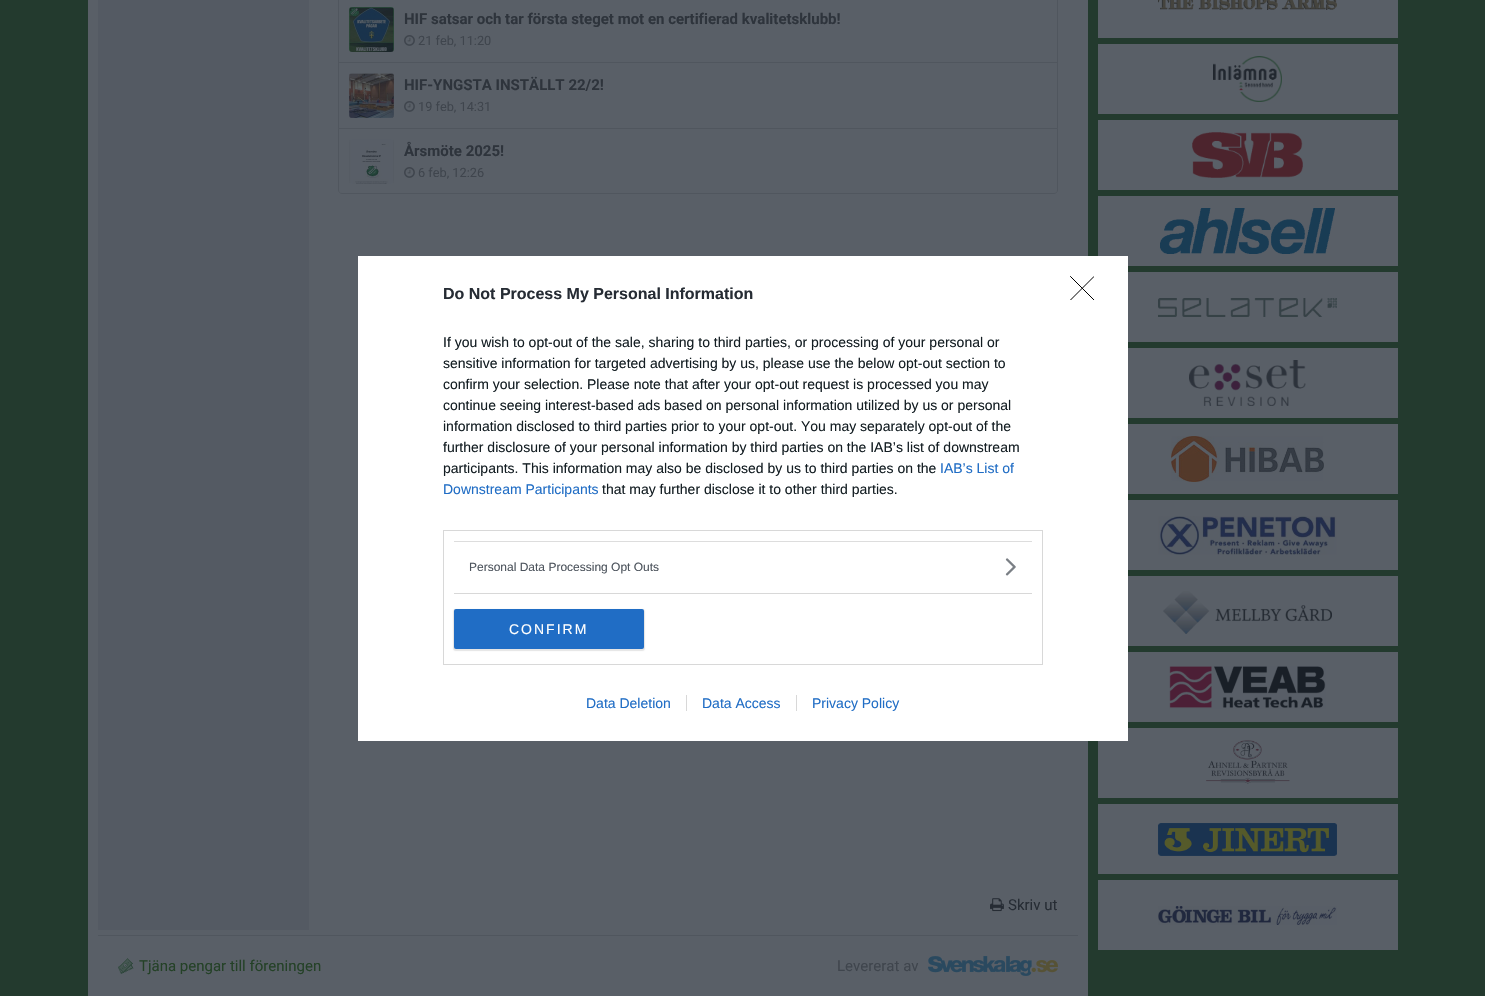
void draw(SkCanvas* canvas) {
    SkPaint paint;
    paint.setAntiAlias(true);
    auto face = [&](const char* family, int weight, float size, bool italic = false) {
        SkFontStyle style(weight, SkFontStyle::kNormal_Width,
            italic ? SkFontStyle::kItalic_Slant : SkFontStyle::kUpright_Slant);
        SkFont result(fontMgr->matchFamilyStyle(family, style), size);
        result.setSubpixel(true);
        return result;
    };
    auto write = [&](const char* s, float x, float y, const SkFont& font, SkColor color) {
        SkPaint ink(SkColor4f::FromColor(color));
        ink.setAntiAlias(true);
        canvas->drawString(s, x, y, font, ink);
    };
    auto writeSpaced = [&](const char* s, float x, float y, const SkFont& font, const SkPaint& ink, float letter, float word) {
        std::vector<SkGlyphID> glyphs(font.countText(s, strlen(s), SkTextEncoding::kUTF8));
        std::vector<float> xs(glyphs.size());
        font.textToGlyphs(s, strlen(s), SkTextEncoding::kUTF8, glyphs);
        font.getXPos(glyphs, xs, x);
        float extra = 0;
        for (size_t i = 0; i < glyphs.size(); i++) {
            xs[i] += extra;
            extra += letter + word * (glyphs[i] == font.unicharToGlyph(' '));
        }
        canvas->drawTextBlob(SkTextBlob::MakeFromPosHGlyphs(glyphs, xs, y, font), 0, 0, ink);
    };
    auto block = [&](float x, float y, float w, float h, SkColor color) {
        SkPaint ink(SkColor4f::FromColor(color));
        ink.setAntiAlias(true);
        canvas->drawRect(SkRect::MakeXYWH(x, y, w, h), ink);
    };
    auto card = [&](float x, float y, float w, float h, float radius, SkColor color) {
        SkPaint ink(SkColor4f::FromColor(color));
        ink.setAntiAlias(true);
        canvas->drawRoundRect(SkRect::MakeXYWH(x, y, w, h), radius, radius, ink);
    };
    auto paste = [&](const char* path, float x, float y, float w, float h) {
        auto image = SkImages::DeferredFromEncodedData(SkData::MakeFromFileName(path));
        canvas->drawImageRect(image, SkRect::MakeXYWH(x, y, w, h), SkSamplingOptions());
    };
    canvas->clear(SkColorSetRGB(35, 58, 46));
    block(88, 0, 1000, 996, SkColorSetRGB(89, 95, 103));
    block(98, 0, 211, 930, SkColorSetRGB(84, 90, 99));
    paint.setStyle(SkPaint::kStroke_Style);
    paint.setStrokeWidth(1);
    paint.setColor(SkColorSetRGB(80, 86, 94));
    canvas->drawRect(SkRect::MakeXYWH(338.5f, -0.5f, 719, 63), paint);
    paste("pic1.png", 349, 7, 45, 45);
    auto kFont1 = face("Roboto", 700, 15);
    write("HIF satsar och tar första steget mot en certifierad kvalitetsklubb!", 404, 24, kFont1, SkColorSetRGB(46, 52, 60));
    paste("pic2.png", 404, 35, 11, 11);
    auto kFont2 = face("Roboto", 400, 12.75f);
    write("21 feb, 11:20", 418, 45, kFont2, SkColorSetRGB(63, 69, 77));
    canvas->drawRect(SkRect::MakeXYWH(338.5f, 62.5f, 719, 66), paint);
    paste("pic3.png", 349, 73, 45, 45);
    write("HIF-YNGSTA INSTÄLLT 22/2!", 404, 90, kFont1, SkColorSetRGB(46, 52, 60));
    paste("pic2.png", 404, 101, 11, 11);
    write("19 feb, 14:31", 418, 111, kFont2, SkColorSetRGB(63, 69, 77));
    paint.setStyle(SkPaint::kFill_Style);
    paint.setColor(SkColorSetRGB(89, 95, 103));
    canvas->drawPath(SkPathBuilder().moveTo(338.5f, 128.5f).lineTo(1057.5f, 128.5f).lineTo(1057.5f, 190).cubicTo(1057.5f, 192, 1056, 193.5f, 1054, 193.5f).lineTo(342, 193.5f).cubicTo(340, 193.5f, 338.5f, 192, 338.5f, 190).close().detach(), paint);
    paint.setStyle(SkPaint::kStroke_Style);
    paint.setColor(SkColorSetRGB(80, 86, 94));
    canvas->drawPath(SkPathBuilder().moveTo(338.5f, 128.5f).lineTo(1057.5f, 128.5f).lineTo(1057.5f, 190).cubicTo(1057.5f, 192, 1056, 193.5f, 1054, 193.5f).lineTo(342, 193.5f).cubicTo(340, 193.5f, 338.5f, 192, 338.5f, 190).close().detach(), paint);
    paste("pic4.png", 349, 139, 45, 45);
    write("Årsmöte 2025!", 404, 156, kFont1, SkColorSetRGB(46, 52, 60));
    paste("pic2.png", 404, 167, 11, 11);
    write("6 feb, 12:26", 418, 177, kFont2, SkColorSetRGB(63, 69, 77));
    paste("pic5.png", 990, 898, 14, 14);
    auto kFont3 = face("Roboto", 400, 15);
    write("Skriv ut", 1008, 910, kFont3, SkColorSetRGB(38, 44, 52));
    block(98, 935, 980, 1, SkColorSetRGB(80, 86, 94));
    paste("pic6.png", 118, 958, 16, 16);
    write("Tjäna pengar till föreningen", 139, 971, kFont3, SkColorSetRGB(36, 65, 39));
    write("Levererat av", 837, 971, kFont3, SkColorSetRGB(63, 69, 77));
    paste("pic7.png", 928, 956, 130, 20);
    block(1098, 0, 300, 38, SkColorSetRGB(89, 95, 103));
    paste("pic8.png", 1158, 0, 179, 10);
    block(1098, 44, 300, 70, SkColorSetRGB(89, 95, 103));
    paste("pic9.png", 1213, 56, 69, 46);
    block(1098, 120, 300, 70, SkColorSetRGB(89, 95, 103));
    paste("pic10.png", 1192, 132, 111, 46);
    block(1098, 196, 300, 70, SkColorSetRGB(89, 95, 103));
    paste("pic11.png", 1160, 208, 175, 46);
    block(1128, 272, 270, 70, SkColorSetRGB(89, 95, 103));
    paste("pic12.png", 1158, 298, 179, 19);
    block(1128, 348, 270, 70, SkColorSetRGB(89, 95, 103));
    paste("pic13.png", 1189, 360, 117, 46);
    block(1128, 424, 270, 70, SkColorSetRGB(89, 95, 103));
    paste("pic14.png", 1171, 436, 153, 46);
    block(1128, 500, 270, 70, SkColorSetRGB(89, 95, 103));
    paste("pic15.png", 1158, 516, 179, 39);
    block(1128, 576, 270, 70, SkColorSetRGB(89, 95, 103));
    paste("pic16.png", 1163, 591, 169, 43);
    block(1128, 652, 270, 70, SkColorSetRGB(89, 95, 103));
    paste("pic17.png", 1169, 666, 157, 43);
    block(1098, 728, 300, 70, SkColorSetRGB(89, 95, 103));
    paste("pic18.png", 1206, 740, 84, 44);
    block(1098, 804, 300, 70, SkColorSetRGB(89, 95, 103));
    paste("pic19.png", 1158, 823, 179, 33);
    block(1098, 880, 300, 70, SkColorSetRGB(89, 95, 103));
    paste("pic20.png", 1158, 906, 179, 19);
    block(358, 256, 770, 485, SK_ColorWHITE);
    auto kFont4 = face("Liberation Sans", 700, 16);
    write("Do Not Process My Personal Information", 443, 299, kFont4, SkColorSetRGB(38, 44, 52));
    auto kFont5 = face("Liberation Sans", 400, 14);
    write("If you wish to opt-out of the sale, sharing to third parties, or processing of your personal or", 443, 347, kFont5, SkColorSetRGB(20, 30, 35));
    write("sensitive information for targeted advertising by us, please use the below opt-out section to", 443, 368, kFont5, SkColorSetRGB(20, 30, 35));
    write("confirm your selection. Please note that after your opt-out request is processed you may", 443, 389, kFont5, SkColorSetRGB(20, 30, 35));
    write("continue seeing interest-based ads based on personal information utilized by us or personal", 443, 410, kFont5, SkColorSetRGB(20, 30, 35));
    write("information disclosed to third parties prior to your opt-out. You may separately opt-out of the", 443, 431, kFont5, SkColorSetRGB(20, 30, 35));
    write("further disclosure of your personal information by third parties on the IAB’s list of downstream", 443, 452, kFont5, SkColorSetRGB(20, 30, 35));
    write("participants. This information may also be disclosed by us to third parties on the", 443, 473, kFont5, SkColorSetRGB(20, 30, 35));
    write("IAB’s List of", 940, 473, kFont5, SkColorSetRGB(32, 109, 197));
    write("Downstream Participants", 443, 494, kFont5, SkColorSetRGB(32, 109, 197));
    write("that may further disclose it to other third parties.", 602, 494, kFont5, SkColorSetRGB(20, 30, 35));
    paint.setColor(SkColorSetRGB(216, 216, 216));
    canvas->drawRect(SkRect::MakeXYWH(443.5f, 530.5f, 599, 134), paint);
    block(454, 541, 578, 1, SkColorSetRGB(221, 221, 221));
    block(454, 593, 578, 1, SkColorSetRGB(216, 216, 216));
    auto kFont6 = face("Liberation Sans", 400, 12);
    write("Personal Data Processing Opt Outs", 469, 571, kFont6, SkColorSetRGB(77, 84, 93));
    paste("pic21.png", 1005, 558, 11, 18);
    paint.setStyle(SkPaint::kFill_Style);
    paint.setColor(SkColorSetARGB(26, 0, 0, 0));
    paint.setMaskFilter(SkMaskFilter::MakeBlur(kNormal_SkBlurStyle, 0.5f));
    canvas->drawRoundRect(SkRect::MakeXYWH(453, 609, 192, 42), 3, 3, paint);
    paint.setMaskFilter(nullptr);
    card(454, 609, 190, 40, 2, SkColorSetRGB(32, 109, 197));
    paint.setColor(SK_ColorWHITE);
    writeSpaced("CONFIRM", 509, 634, kFont5, paint, 2, 0);
    canvas->save();
    canvas->clipRect(SkRect::MakeXYWH(1070, 276, 24, 24));
    paint.setStyle(SkPaint::kStroke_Style);
    paint.setStrokeCap(SkPaint::kRound_Cap);
    paint.setStrokeJoin(SkPaint::kRound_Join);
    paint.setColor(SK_ColorBLACK);
    canvas->drawPath(SkPathBuilder().moveTo(1070.5f, 276.5f).lineTo(1094, 300).moveTo(1094, 276.5f).lineTo(1070.5f, 300).detach(), paint);
    canvas->restore();
    write("Data Deletion", 586, 708, kFont5, SkColorSetRGB(32, 109, 197));
    write("Data Access", 702, 708, kFont5, SkColorSetRGB(32, 109, 197));
    block(686, 695, 1, 16, SkColorSetRGB(216, 216, 216));
    write("Privacy Policy", 812, 708, kFont5, SkColorSetRGB(32, 109, 197));
    block(796, 695, 1, 16, SkColorSetRGB(216, 216, 216));
}
